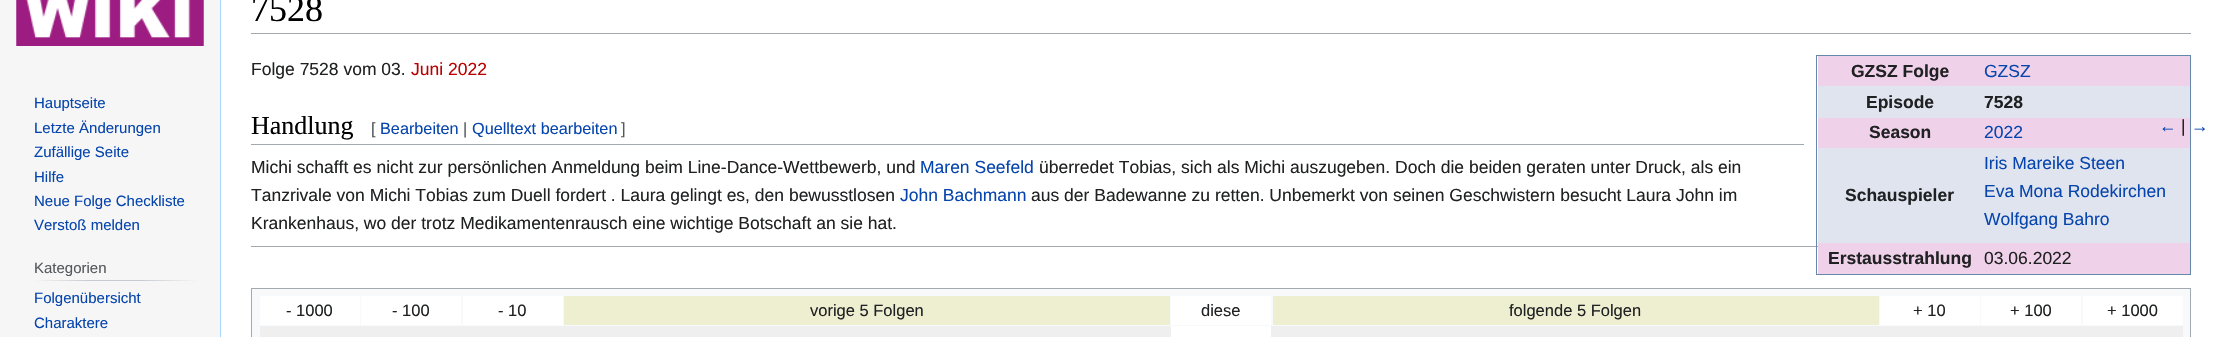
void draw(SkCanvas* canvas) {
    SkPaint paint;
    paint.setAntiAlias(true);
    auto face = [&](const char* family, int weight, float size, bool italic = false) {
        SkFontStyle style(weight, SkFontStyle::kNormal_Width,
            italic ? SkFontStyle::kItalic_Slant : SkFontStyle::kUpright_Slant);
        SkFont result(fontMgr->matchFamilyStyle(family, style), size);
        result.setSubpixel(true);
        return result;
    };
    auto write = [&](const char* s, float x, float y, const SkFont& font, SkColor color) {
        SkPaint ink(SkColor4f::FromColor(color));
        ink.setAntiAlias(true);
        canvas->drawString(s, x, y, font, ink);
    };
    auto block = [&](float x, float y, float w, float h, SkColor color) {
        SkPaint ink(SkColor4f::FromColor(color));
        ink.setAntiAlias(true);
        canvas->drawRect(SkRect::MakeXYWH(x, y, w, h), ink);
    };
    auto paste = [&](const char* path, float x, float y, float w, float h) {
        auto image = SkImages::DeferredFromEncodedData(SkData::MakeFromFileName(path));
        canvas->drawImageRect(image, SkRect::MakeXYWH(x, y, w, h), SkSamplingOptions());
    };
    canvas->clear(SkColorSetRGB(246, 246, 246));
    paste("pic1.png", 16, 0, 188, 46);
    auto kFont1 = face("Liberation Sans", 400, 15);
    write("Hauptseite", 34, 108, kFont1, SkColorSetRGB(6, 69, 173));
    write("Letzte Änderungen", 34, 133, kFont1, SkColorSetRGB(6, 69, 173));
    write("Zufällige Seite", 34, 157, kFont1, SkColorSetRGB(6, 69, 173));
    write("Hilfe", 34, 182, kFont1, SkColorSetRGB(6, 69, 173));
    write("Neue Folge Checkliste", 34, 206, kFont1, SkColorSetRGB(6, 69, 173));
    write("Verstoß melden", 34, 230, kFont1, SkColorSetRGB(6, 69, 173));
    {
        const SkColor colors[] = {SkColorSetRGB(246, 246, 246), SkColorSetRGB(200, 204, 209), SkColorSetRGB(200, 204, 209), SkColorSetRGB(246, 246, 246)};
        const float stops[] = {0, 0.33f, 0.66f, 1};
        const SkPoint ends[] = {{34, 281}, {198, 281}};
        paint.setShader(SkGradientShader::MakeLinear(ends, colors, stops, 4, SkTileMode::kClamp));
        paint.setAlpha(255);
    }
    canvas->drawRect(SkRect::MakeXYWH(34, 280, 164, 1), paint);
    write("Kategorien", 34, 273, kFont1, SkColorSetRGB(84, 89, 93));
    write("Folgenübersicht", 34, 303, kFont1, SkColorSetRGB(6, 69, 173));
    write("Charaktere", 34, 328, kFont1, SkColorSetRGB(6, 69, 173));
    block(221, 0, 2000, 337, SK_ColorWHITE);
    block(220, 0, 1, 337, SkColorSetRGB(167, 215, 249));
    block(251, 33, 1940, 1, SkColorSetRGB(162, 169, 177));
    auto kFont2 = face("Liberation Serif", 400, 36);
    write("7528", 251, 21, kFont2, SK_ColorBLACK);
    auto kFont3 = face("Liberation Sans", 400, 17.5f);
    write("Folge 7528 vom 03.", 251, 75, kFont3, SkColorSetRGB(32, 33, 34));
    write("Juni 2022", 411, 75, kFont3, SkColorSetRGB(186, 0, 0));
    block(1816, 55, 375, 1, SkColorSetRGB(102, 136, 170));
    block(2190, 55, 1, 220, SkColorSetRGB(102, 136, 170));
    block(1816, 274, 375, 1, SkColorSetRGB(102, 136, 170));
    block(251, 246, 1567, 1, SkColorSetRGB(162, 169, 177));
    block(1816, 55, 1, 220, SkColorSetRGB(102, 136, 170));
    block(1818, 56, 372, 30, SkColorSetRGB(239, 209, 233));
    auto kFont4 = face("Liberation Sans", 700, 17.5f);
    write("GZSZ Folge", 1851, 77, kFont4, SkColorSetRGB(32, 33, 34));
    write("GZSZ", 1984, 77, kFont3, SkColorSetRGB(6, 69, 173));
    block(1818, 86, 372, 32, SkColorSetRGB(224, 228, 239));
    write("Episode", 1866, 108, kFont4, SkColorSetRGB(32, 33, 34));
    write("7528", 1984, 108, kFont4, SkColorSetRGB(32, 33, 34));
    block(1818, 118, 372, 30, SkColorSetRGB(239, 209, 233));
    write("Season", 1869, 138, kFont4, SkColorSetRGB(32, 33, 34));
    write("2022", 1984, 138, kFont3, SkColorSetRGB(6, 69, 173));
    block(1818, 148, 372, 95, SkColorSetRGB(224, 228, 239));
    write("Schauspieler", 1845, 201, kFont4, SkColorSetRGB(32, 33, 34));
    write("Iris Mareike Steen", 1984, 169, kFont3, SkColorSetRGB(6, 69, 173));
    write("Eva Mona Rodekirchen", 1984, 197, kFont3, SkColorSetRGB(6, 69, 173));
    write("Wolfgang Bahro", 1984, 225, kFont3, SkColorSetRGB(6, 69, 173));
    block(1818, 243, 372, 31, SkColorSetRGB(239, 209, 233));
    write("Erstausstrahlung", 1828, 264, kFont4, SkColorSetRGB(32, 33, 34));
    write("03.06.2022", 1984, 264, kFont3, SkColorSetRGB(32, 33, 34));
    block(251, 144, 1553, 1, SkColorSetRGB(162, 169, 177));
    auto kFont5 = face("Liberation Serif", 400, 26);
    write("Handlung", 251, 134, kFont5, SK_ColorBLACK);
    auto kFont6 = face("Liberation Sans", 400, 16.25f);
    write("[", 371, 134, kFont6, SkColorSetRGB(84, 89, 93));
    write("Bearbeiten", 380, 134, kFont6, SkColorSetRGB(6, 69, 173));
    write("|", 463, 134, kFont6, SkColorSetRGB(84, 89, 93));
    write("Quelltext bearbeiten", 472, 134, kFont6, SkColorSetRGB(6, 69, 173));
    write("]", 621, 134, kFont6, SkColorSetRGB(84, 89, 93));
    write("←", 2159, 132, kFont3, SkColorSetRGB(6, 69, 173));
    write("|", 2181, 132, kFont3, SkColorSetRGB(32, 33, 34));
    write("→", 2191, 132, kFont3, SkColorSetRGB(6, 69, 173));
    write("Michi schafft es nicht zur persönlichen Anmeldung beim Line-Dance-Wettbewerb, und", 251, 173, kFont3, SkColorSetRGB(32, 33, 34));
    write("Maren Seefeld", 920, 173, kFont3, SkColorSetRGB(6, 69, 173));
    write("überredet Tobias, sich als Michi auszugeben. Doch die beiden geraten unter Druck, als ein", 1039, 173, kFont3, SkColorSetRGB(32, 33, 34));
    write("Tanzrivale von Michi Tobias zum Duell fordert . Laura gelingt es, den bewusstlosen", 251, 201, kFont3, SkColorSetRGB(32, 33, 34));
    write("John Bachmann", 900, 201, kFont3, SkColorSetRGB(6, 69, 173));
    write("aus der Badewanne zu retten. Unbemerkt von seinen Geschwistern besucht Laura John im", 1031, 201, kFont3, SkColorSetRGB(32, 33, 34));
    write("Krankenhaus, wo der trotz Medikamentenrausch eine wichtige Botschaft an sie hat.", 251, 229, kFont3, SkColorSetRGB(32, 33, 34));
    paint.setShader(nullptr);
    paint.setColor(SkColorSetRGB(248, 249, 250));
    canvas->drawRect(SkRect::MakeXYWH(251.5f, 288.5f, 1939, 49), paint);
    paint.setStyle(SkPaint::kStroke_Style);
    paint.setStrokeWidth(1);
    paint.setColor(SkColorSetRGB(162, 169, 177));
    canvas->drawRect(SkRect::MakeXYWH(251.5f, 288.5f, 1939, 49), paint);
    block(260, 296, 100, 29, SK_ColorWHITE);
    auto kFont7 = face("Liberation Sans", 400, 16.5f);
    write("- 1000", 286, 316, kFont7, SkColorSetRGB(32, 33, 34));
    block(361, 296, 100, 29, SK_ColorWHITE);
    write("- 100", 392, 316, kFont7, SkColorSetRGB(32, 33, 34));
    block(463, 296, 100, 29, SK_ColorWHITE);
    write("- 10", 498, 316, kFont7, SkColorSetRGB(32, 33, 34));
    block(564, 296, 606, 29, SkColorSetRGB(238, 238, 209));
    write("vorige 5 Folgen", 810, 316, kFont7, SkColorSetRGB(32, 33, 34));
    block(1171, 296, 100, 29, SK_ColorWHITE);
    write("diese", 1201, 316, kFont7, SkColorSetRGB(32, 33, 34));
    block(1273, 296, 606, 29, SkColorSetRGB(238, 238, 209));
    write("folgende 5 Folgen", 1509, 316, kFont7, SkColorSetRGB(32, 33, 34));
    block(1880, 296, 100, 29, SK_ColorWHITE);
    write("+ 10", 1913, 316, kFont7, SkColorSetRGB(32, 33, 34));
    block(1981, 296, 100, 29, SK_ColorWHITE);
    write("+ 100", 2010, 316, kFont7, SkColorSetRGB(32, 33, 34));
    block(2083, 296, 100, 29, SK_ColorWHITE);
    write("+ 1000", 2107, 316, kFont7, SkColorSetRGB(32, 33, 34));
    block(260, 326, 1923, 11, SkColorSetRGB(239, 239, 239));
    block(1171, 326, 100, 11, SK_ColorWHITE);
}
